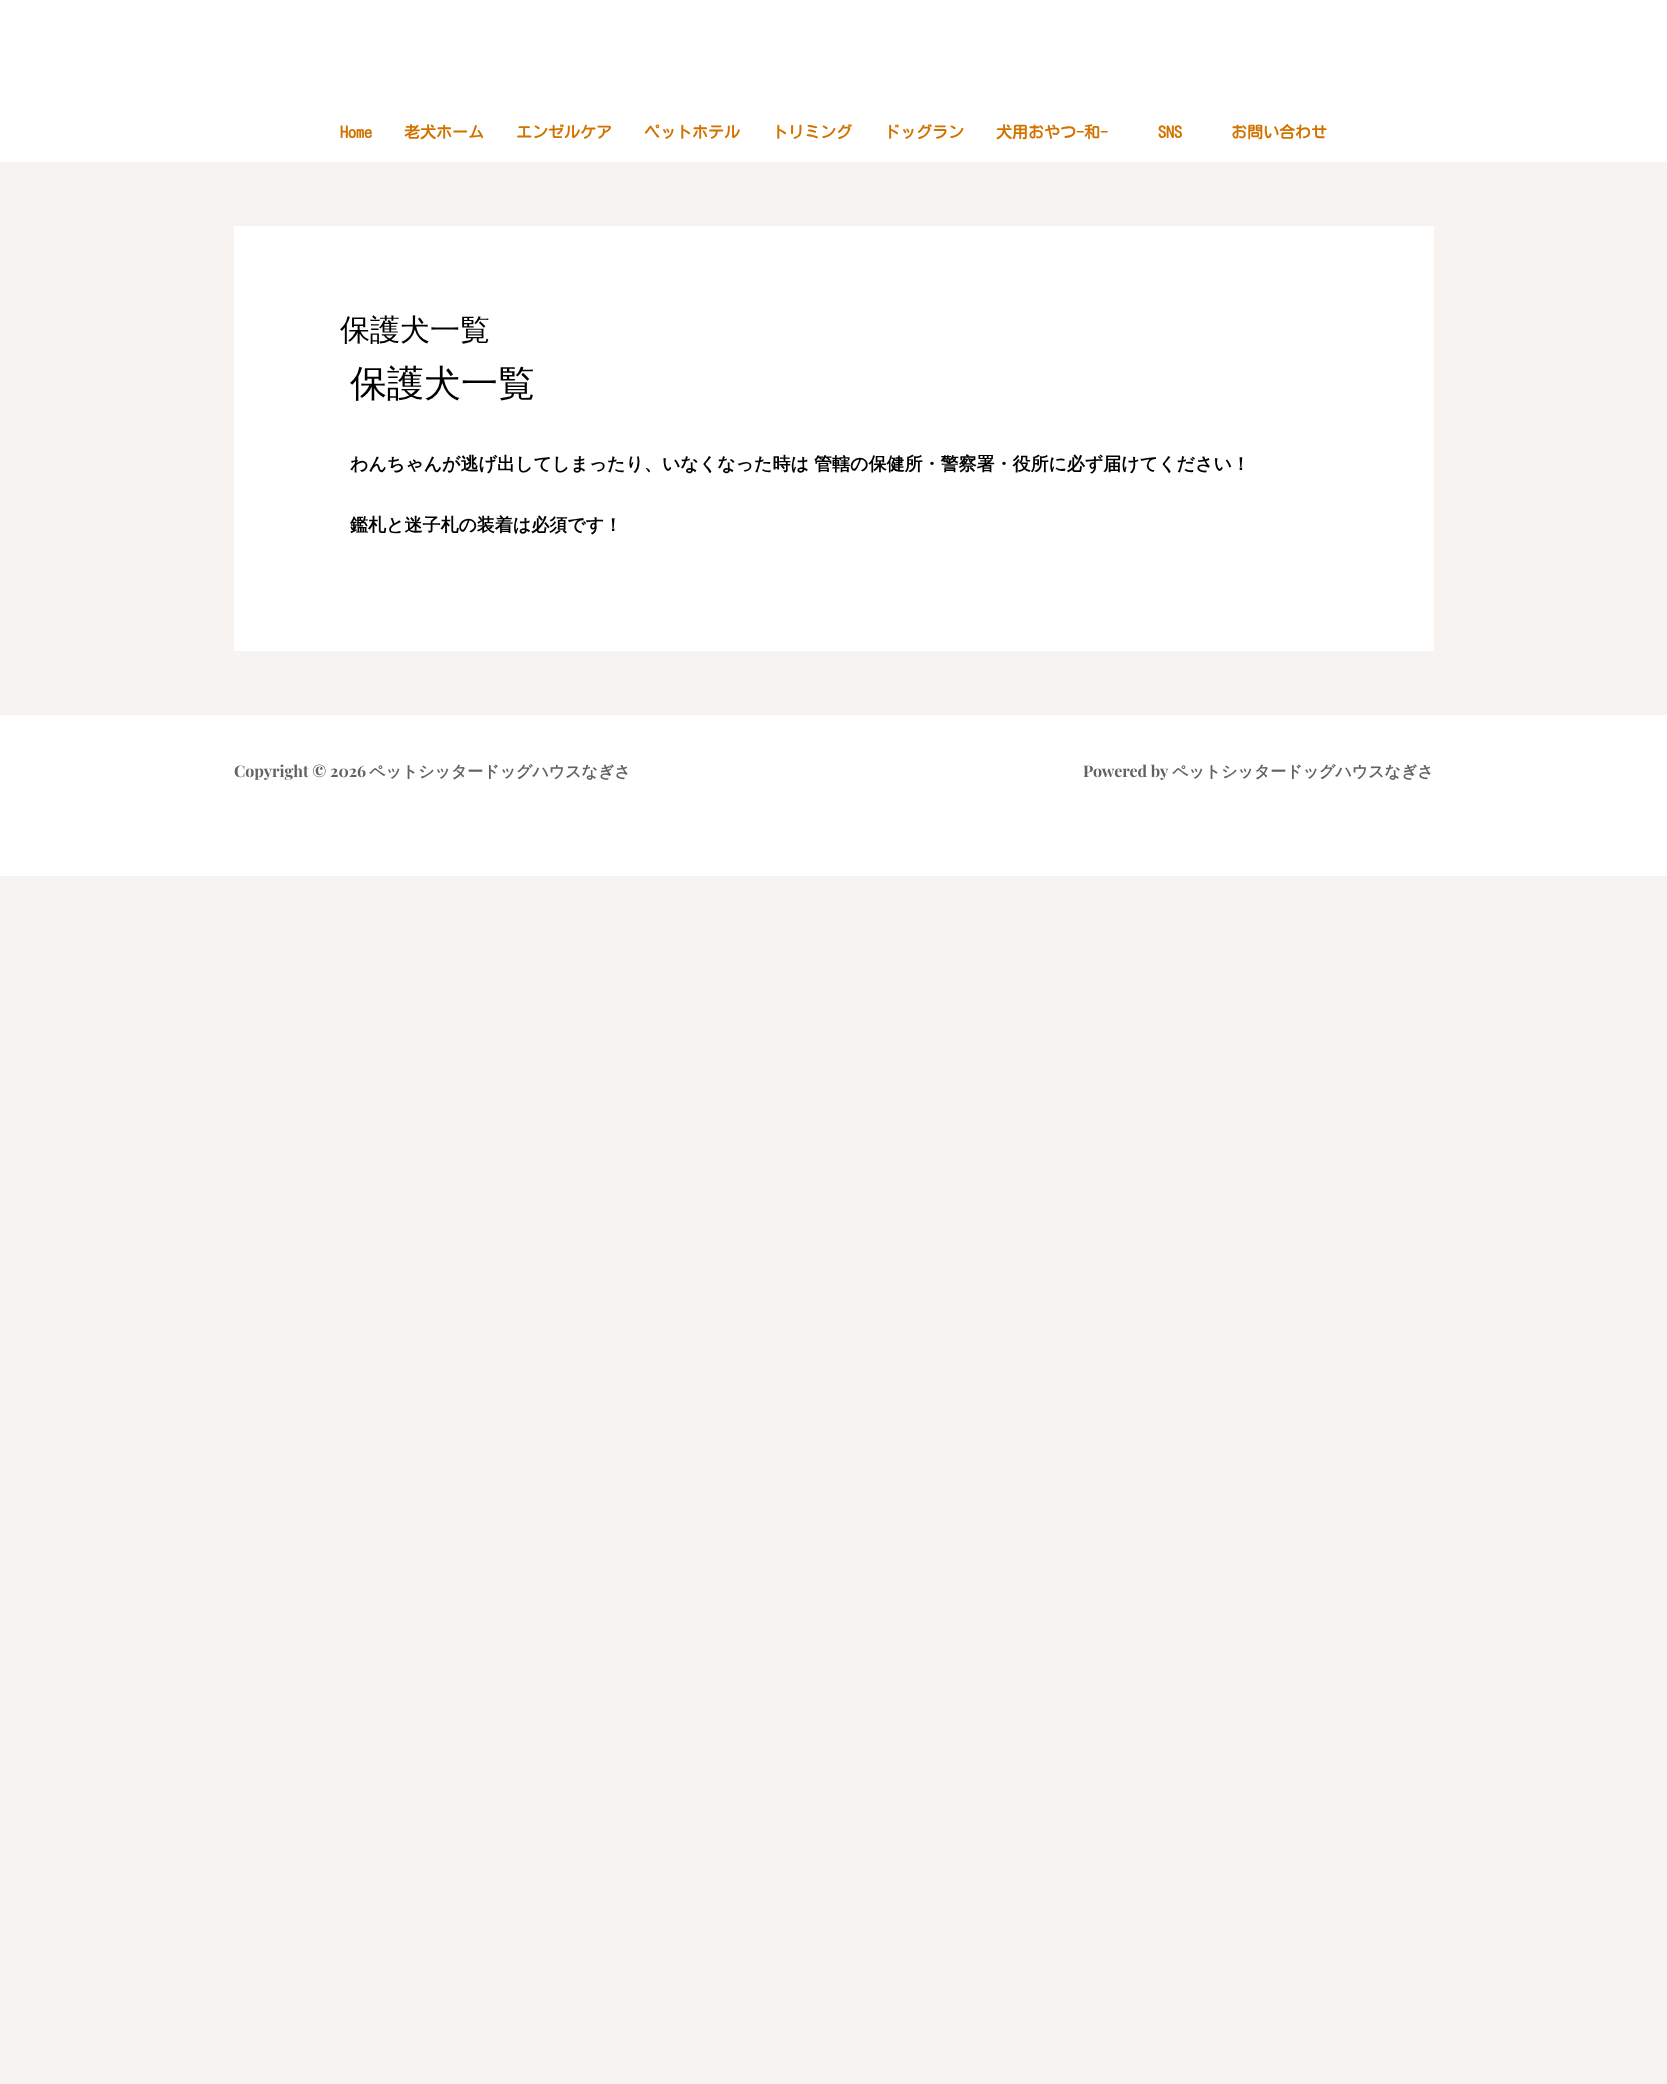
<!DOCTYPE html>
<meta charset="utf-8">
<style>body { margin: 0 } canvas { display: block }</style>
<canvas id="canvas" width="1667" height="2084"></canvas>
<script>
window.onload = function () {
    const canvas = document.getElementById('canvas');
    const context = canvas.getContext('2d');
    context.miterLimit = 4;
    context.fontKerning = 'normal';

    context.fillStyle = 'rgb(246, 243, 241)';
    context.fillRect(0, 0, 1667, 2084);
    context.fillStyle = 'rgb(255, 255, 255)';
    context.fillRect(0, 0, 1667, 162);
    context.fillRect(234, 226, 1200, 425);
    context.fillRect(0, 715, 1667, 161);
    context.font = 'bold 16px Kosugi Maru';
    context.fillStyle = 'rgb(210, 115, 0)';
    context.fillText('Home', 340, 138);
    context.fillText('老犬ホーム', 404, 138);
    context.fillText('エンゼルケア', 516, 138);
    context.fillText('ペットホテル', 644, 138);
    context.fillText('トリミング', 772, 138);
    context.fillText('ドッグラン', 884, 138);
    context.fillText('犬用おやつ-和-', 996, 138);
    context.fillText('SNS', 1158, 138);
    context.fillText('お問い合わせ', 1231, 138);
    context.font = '500 30px WenQuanYi Zen Hei';
    context.fillStyle = 'rgb(0, 0, 0)';
    context.fillText('保護犬一覧', 340, 340);
    context.font = '500 37px WenQuanYi Zen Hei';
    context.fillText('保護犬一覧', 350, 396);
    context.font = 'bold 18px WenQuanYi Zen Hei';
    context.fillText('わんちゃんが逃げ出してしまったり、いなくなった時は', 350, 470);
    context.fillText('管轄の保健所・警察署・役所に必ず届けてください！', 814, 470);
    context.fillText('鑑札と迷子札の装着は必須です！', 350, 531);
    context.font = 'bold 16px Playfair Display';
    context.fillStyle = 'rgb(99, 97, 97)';
    context.fillText('Copyright © 2026', 234, 777);
    context.font = 'bold 16px WenQuanYi Zen Hei';
    context.fillText('ペットシッタードッグハウスなぎさ', 369, 777);
    context.font = 'bold 16px Playfair Display';
    context.fillText('Powered by', 1083, 777);
    context.font = 'bold 16px WenQuanYi Zen Hei';
    context.fillText('ペットシッタードッグハウスなぎさ', 1172, 777);
};
</script>
